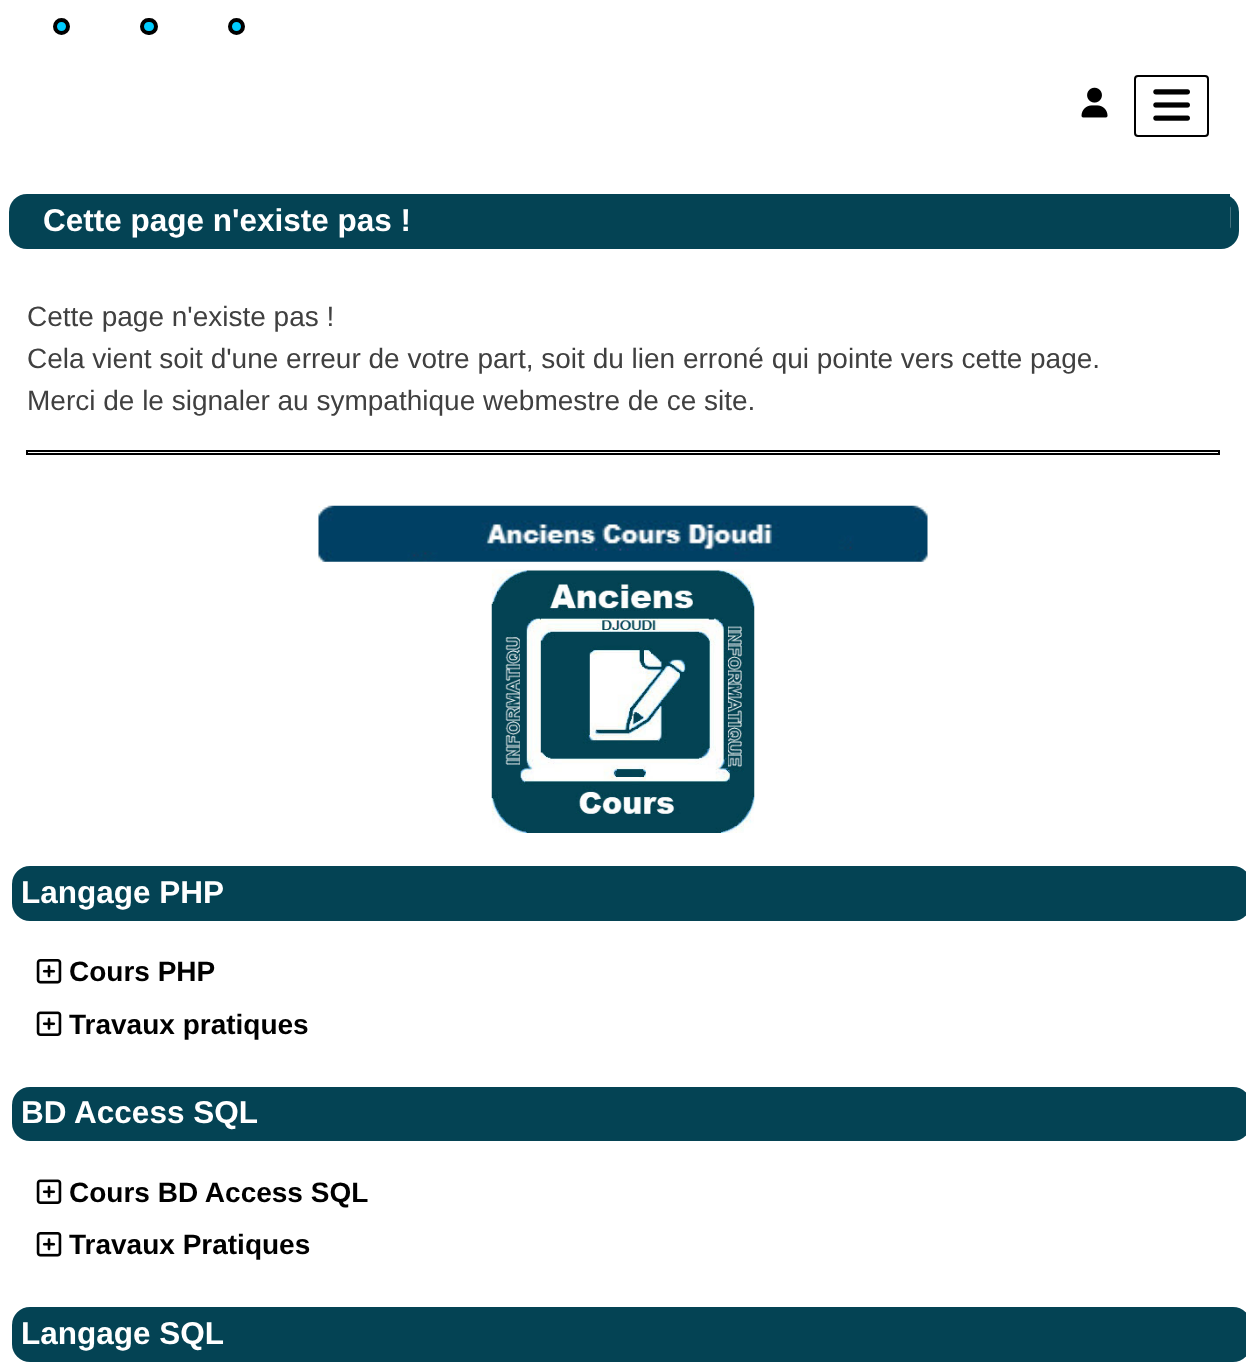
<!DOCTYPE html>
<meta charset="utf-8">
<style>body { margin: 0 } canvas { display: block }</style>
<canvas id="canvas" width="1246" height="1362"></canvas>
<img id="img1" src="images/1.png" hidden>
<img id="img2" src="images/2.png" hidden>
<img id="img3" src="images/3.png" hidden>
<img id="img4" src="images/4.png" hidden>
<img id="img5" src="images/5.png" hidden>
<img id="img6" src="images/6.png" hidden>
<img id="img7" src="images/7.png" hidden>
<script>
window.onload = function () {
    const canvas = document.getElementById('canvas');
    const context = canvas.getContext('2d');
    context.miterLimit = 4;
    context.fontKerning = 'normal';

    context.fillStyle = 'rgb(255, 255, 255)';
    context.fillRect(0, 0, 1246, 1362);
    context.fillStyle = 'rgb(0, 204, 255)';
    context.beginPath();
    context.arc(61.5, 26.5, 6.5, 0, 2 * Math.PI);
    context.fill();
    context.strokeStyle = 'rgb(0, 0, 0)';
    context.lineWidth = 4;
    context.stroke();
    context.beginPath();
    context.roundRect(142, 20, 14, 13, 6.5);
    context.fill();
    context.stroke();
    context.beginPath();
    context.arc(236.5, 26.5, 6.5, 0, 2 * Math.PI);
    context.fill();
    context.stroke();
    context.drawImage(document.getElementById('img1'), 1081, 87, 27, 31);
    context.beginPath();
    context.roundRect(1135, 76, 73, 60, 3);
    context.lineWidth = 2;
    context.stroke();
    context.drawImage(document.getElementById('img2'), 1153, 89, 37, 32);
    context.fillStyle = 'rgb(4, 67, 84)';
    context.beginPath();
    context.roundRect(9, 194, 1230, 55, 18);
    context.fill();
    context.fillRect(1221, 194, 9, 3);
    context.drawImage(document.getElementById('img3'), 1230, 206, 1, 23);
    context.strokeRect(27, 451, 1192, 3);
    context.drawImage(document.getElementById('img4'), 318, 505, 610, 57);
    context.drawImage(document.getElementById('img5'), 491, 569, 264, 264);
    context.beginPath();
    context.roundRect(12, 866, 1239, 55, 18);
    context.fill();
    context.drawImage(document.getElementById('img6'), 36, 959, 26, 25);
    context.drawImage(document.getElementById('img7'), 36, 1011, 26, 25);
    context.beginPath();
    context.roundRect(12, 1087, 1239, 54, 18);
    context.fill();
    context.drawImage(document.getElementById('img7'), 36, 1179, 26, 25);
    context.drawImage(document.getElementById('img6'), 36, 1232, 26, 25);
    context.beginPath();
    context.roundRect(12, 1307, 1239, 55, 18);
    context.fill();
    context.font = 'bold 31.5px Liberation Sans';
    context.fillStyle = 'rgb(255, 255, 255)';
    context.fillText('Cette page n\'existe pas !', 43, 231);
    context.font = '28px Liberation Sans';
    context.fillStyle = 'rgb(64, 64, 64)';
    context.fillText('Cette page n\'existe pas !', 27, 326);
    context.fillText('Cela vient soit d\'une erreur de votre part, soit du lien erroné qui pointe vers cette page.', 27, 368);
    context.fillText('Merci de le signaler au sympathique webmestre de ce site.', 27, 410);
    context.font = 'bold 31.5px Liberation Sans';
    context.fillStyle = 'rgb(255, 255, 255)';
    context.fillText('Langage PHP', 21, 903);
    context.font = 'bold 28px Liberation Sans';
    context.fillStyle = 'rgb(0, 0, 0)';
    context.fillText('Cours PHP', 69, 981);
    context.fillText('Travaux pratiques', 69, 1034);
    context.font = 'bold 31.5px Liberation Sans';
    context.fillStyle = 'rgb(255, 255, 255)';
    context.fillText('BD Access SQL', 21, 1123);
    context.font = 'bold 28px Liberation Sans';
    context.fillStyle = 'rgb(0, 0, 0)';
    context.fillText('Cours BD Access SQL', 69, 1202);
    context.fillText('Travaux Pratiques', 69, 1254);
    context.font = 'bold 31.5px Liberation Sans';
    context.fillStyle = 'rgb(255, 255, 255)';
    context.fillText('Langage SQL', 21, 1344);
};
</script>
